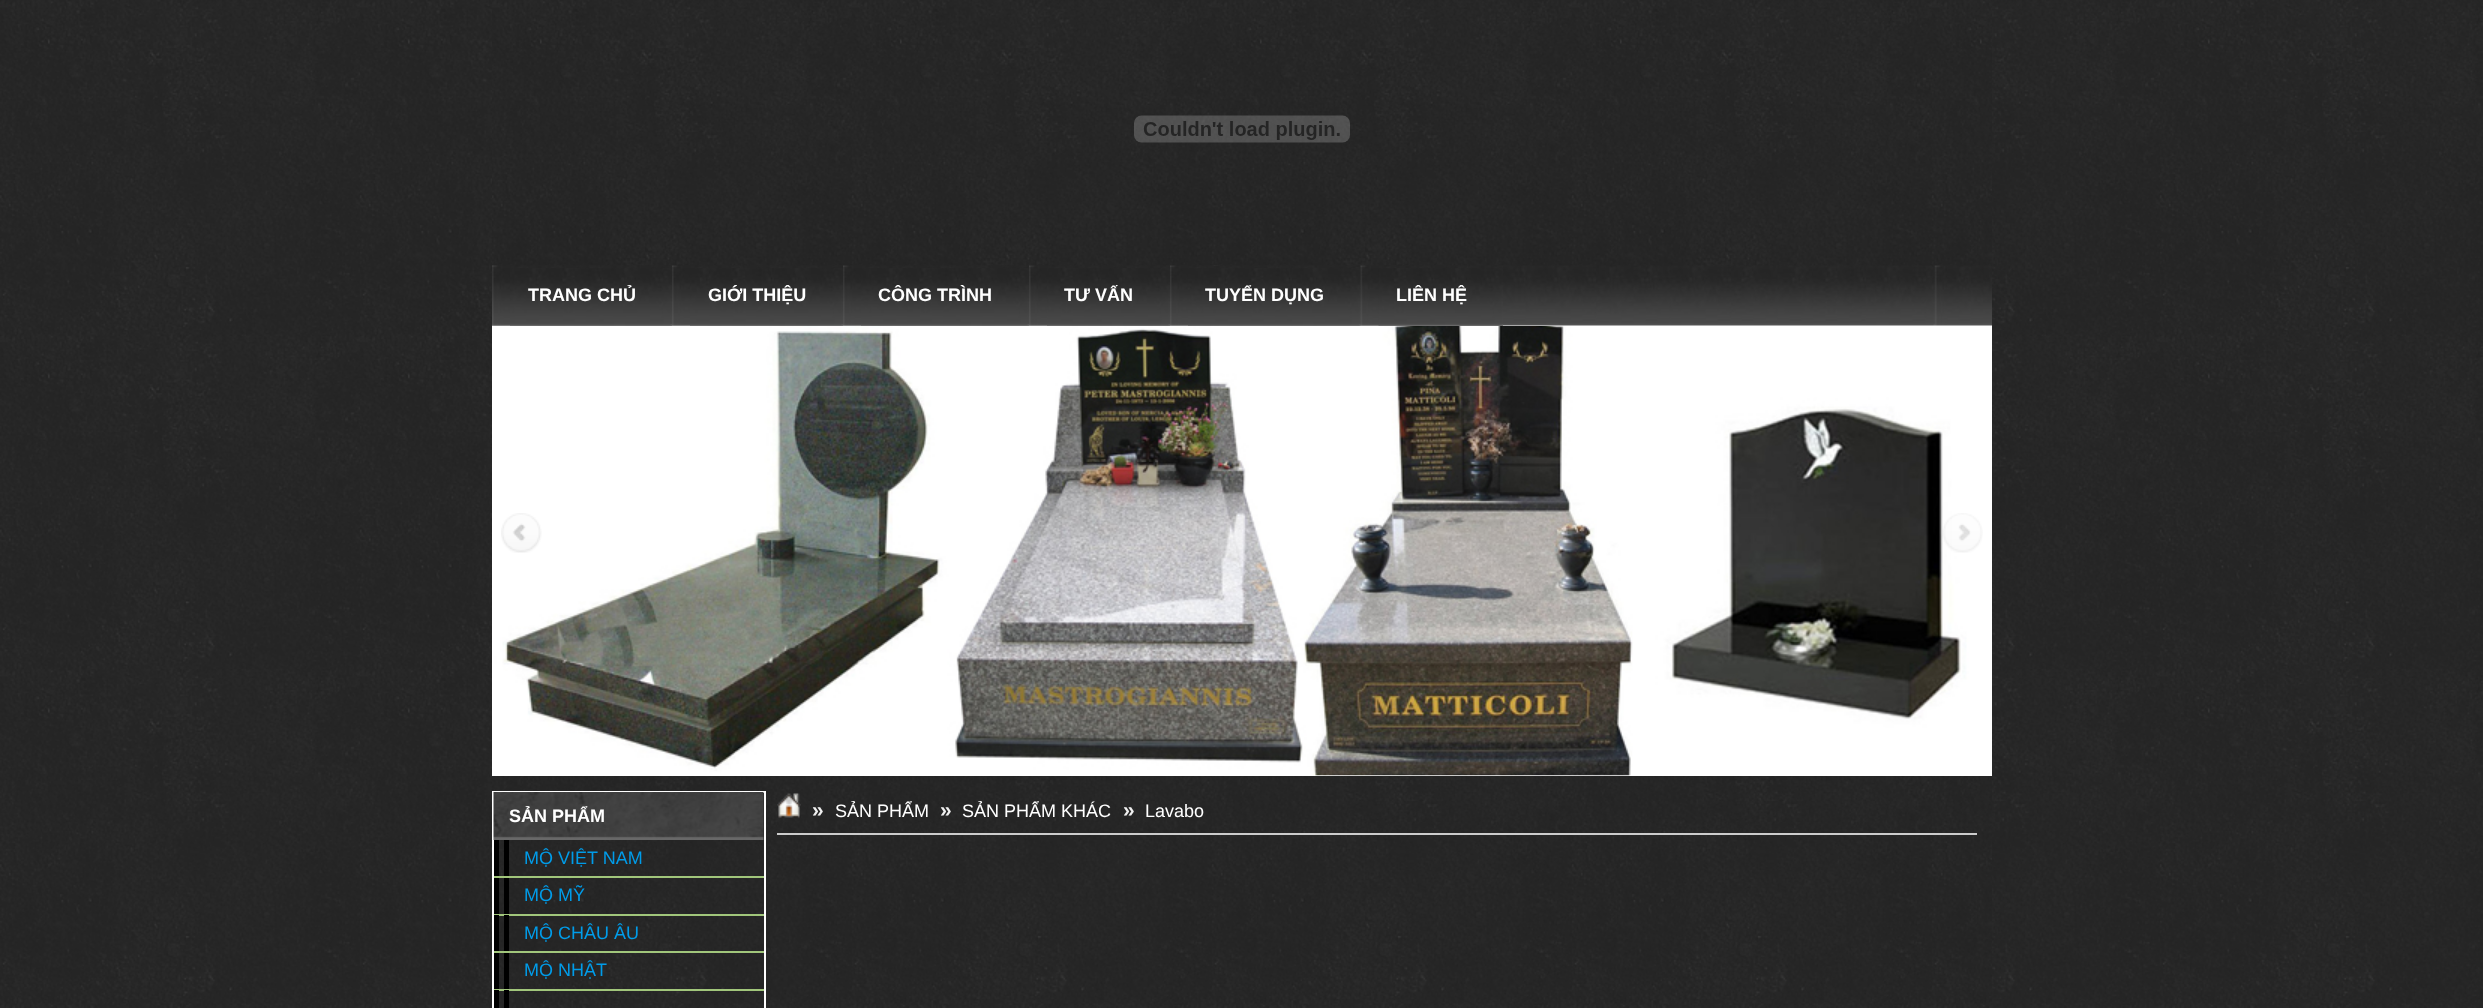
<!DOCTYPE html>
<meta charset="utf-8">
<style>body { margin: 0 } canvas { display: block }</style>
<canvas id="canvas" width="2483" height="1008"></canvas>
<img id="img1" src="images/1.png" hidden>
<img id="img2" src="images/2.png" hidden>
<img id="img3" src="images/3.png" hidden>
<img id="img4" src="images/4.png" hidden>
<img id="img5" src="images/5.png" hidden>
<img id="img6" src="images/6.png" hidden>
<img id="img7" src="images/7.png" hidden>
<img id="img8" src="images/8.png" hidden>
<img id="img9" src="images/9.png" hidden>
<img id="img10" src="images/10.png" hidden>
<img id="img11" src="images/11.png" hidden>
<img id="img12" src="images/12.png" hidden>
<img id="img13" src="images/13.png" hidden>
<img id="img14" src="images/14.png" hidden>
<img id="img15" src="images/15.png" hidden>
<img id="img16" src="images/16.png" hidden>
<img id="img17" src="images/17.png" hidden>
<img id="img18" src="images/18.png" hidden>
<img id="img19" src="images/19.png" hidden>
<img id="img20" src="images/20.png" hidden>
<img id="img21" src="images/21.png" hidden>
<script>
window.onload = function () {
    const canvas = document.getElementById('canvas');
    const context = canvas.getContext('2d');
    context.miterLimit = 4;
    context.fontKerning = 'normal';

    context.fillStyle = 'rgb(255, 255, 255)';
    context.fillRect(0, 0, 2483, 1008);
    context.drawImage(document.getElementById('img1'), 0, 0, 2483, 1008);
    context.drawImage(document.getElementById('img2'), 492, 0, 1500, 1008);
    context.drawImage(document.getElementById('img3'), 1134, 115, 216, 28);
    context.fillRect(492, 325, 1500, 1);
    context.drawImage(document.getElementById('img4'), 492, 265, 1500, 61);
    context.drawImage(document.getElementById('img5'), 492, 265, 180, 61);
    context.drawImage(document.getElementById('img6'), 510, 268, 162, 58);
    context.drawImage(document.getElementById('img7'), 672, 265, 171, 61);
    context.drawImage(document.getElementById('img8'), 690, 268, 153, 58);
    context.drawImage(document.getElementById('img9'), 843, 265, 186, 61);
    context.drawImage(document.getElementById('img10'), 861, 268, 168, 58);
    context.drawImage(document.getElementById('img11'), 1029, 265, 141, 61);
    context.drawImage(document.getElementById('img12'), 1047, 268, 123, 58);
    context.drawImage(document.getElementById('img13'), 1170, 265, 191, 61);
    context.drawImage(document.getElementById('img14'), 1188, 268, 173, 58);
    context.drawImage(document.getElementById('img15'), 1360, 265, 143, 61);
    context.drawImage(document.getElementById('img16'), 1378, 268, 125, 58);
    context.fillRect(492, 775, 1500, 1);
    context.drawImage(document.getElementById('img17'), 492, 326, 1500, 450);
    context.drawImage(document.getElementById('img18'), 501, 513, 41, 40);
    context.drawImage(document.getElementById('img19'), 1942, 513, 41, 40);
    context.fillRect(492, 791, 273, 2);
    context.fillRect(764, 791, 2, 217);
    context.fillRect(492, 791, 2, 217);
    context.drawImage(document.getElementById('img20'), 493, 792, 271, 48);
    context.fillStyle = 'rgb(161, 198, 123)';
    context.fillRect(494, 876, 270, 2);
    context.fillStyle = 'rgb(0, 0, 0)';
    context.fillRect(494, 840, 5, 36);
    context.fillRect(504, 840, 5, 36);
    context.fillStyle = 'rgb(161, 198, 123)';
    context.fillRect(494, 914, 270, 2);
    context.fillStyle = 'rgb(0, 0, 0)';
    context.fillRect(494, 878, 5, 36);
    context.fillRect(504, 878, 5, 36);
    context.fillStyle = 'rgb(161, 198, 123)';
    context.fillRect(494, 951, 270, 2);
    context.fillStyle = 'rgb(0, 0, 0)';
    context.fillRect(494, 915, 5, 36);
    context.fillRect(504, 915, 5, 36);
    context.fillStyle = 'rgb(161, 198, 123)';
    context.fillRect(494, 989, 270, 2);
    context.fillStyle = 'rgb(0, 0, 0)';
    context.fillRect(494, 953, 5, 36);
    context.fillRect(504, 953, 5, 36);
    context.fillRect(494, 990, 5, 18);
    context.fillRect(504, 990, 5, 18);
    context.fillStyle = 'rgb(204, 204, 204)';
    context.fillRect(777, 833, 1200, 2);
    context.drawImage(document.getElementById('img21'), 777, 793, 24, 25);
    context.font = 'bold 18px Liberation Sans';
    context.fillStyle = 'rgb(255, 255, 255)';
    context.fillText('TRANG CHỦ', 528, 301);
    context.fillText('GIỚI THIỆU', 708, 301);
    context.fillText('CÔNG TRÌNH', 878, 301);
    context.fillText('TƯ VẤN', 1064, 301);
    context.fillText('TUYỂN DỤNG', 1205, 301);
    context.fillText('LIÊN HỆ', 1396, 301);
    context.fillText('SẢN PHẨM', 509, 822);
    context.font = '18px Liberation Sans';
    context.fillStyle = 'rgb(0, 156, 233)';
    context.fillText('MỘ VIỆT NAM', 524, 864);
    context.fillText('MỘ MỸ', 524, 901);
    context.fillText('MỘ CHÂU ÂU', 524, 939);
    context.fillText('MỘ NHẬT', 524, 976);
    context.font = 'bold 21px Liberation Sans';
    context.fillStyle = 'rgb(240, 240, 240)';
    context.fillText('»', 812, 817);
    context.font = '18px Liberation Sans';
    context.fillStyle = 'rgb(255, 255, 255)';
    context.fillText('SẢN PHẨM', 835, 817);
    context.font = 'bold 21px Liberation Sans';
    context.fillStyle = 'rgb(240, 240, 240)';
    context.fillText('»', 940, 817);
    context.font = '18px Liberation Sans';
    context.fillStyle = 'rgb(255, 255, 255)';
    context.fillText('SẢN PHẨM KHÁC', 962, 817);
    context.font = 'bold 21px Liberation Sans';
    context.fillStyle = 'rgb(240, 240, 240)';
    context.fillText('»', 1123, 817);
    context.font = '18px Liberation Sans';
    context.fillStyle = 'rgb(255, 255, 255)';
    context.fillText('Lavabo', 1145, 817);
};
</script>
